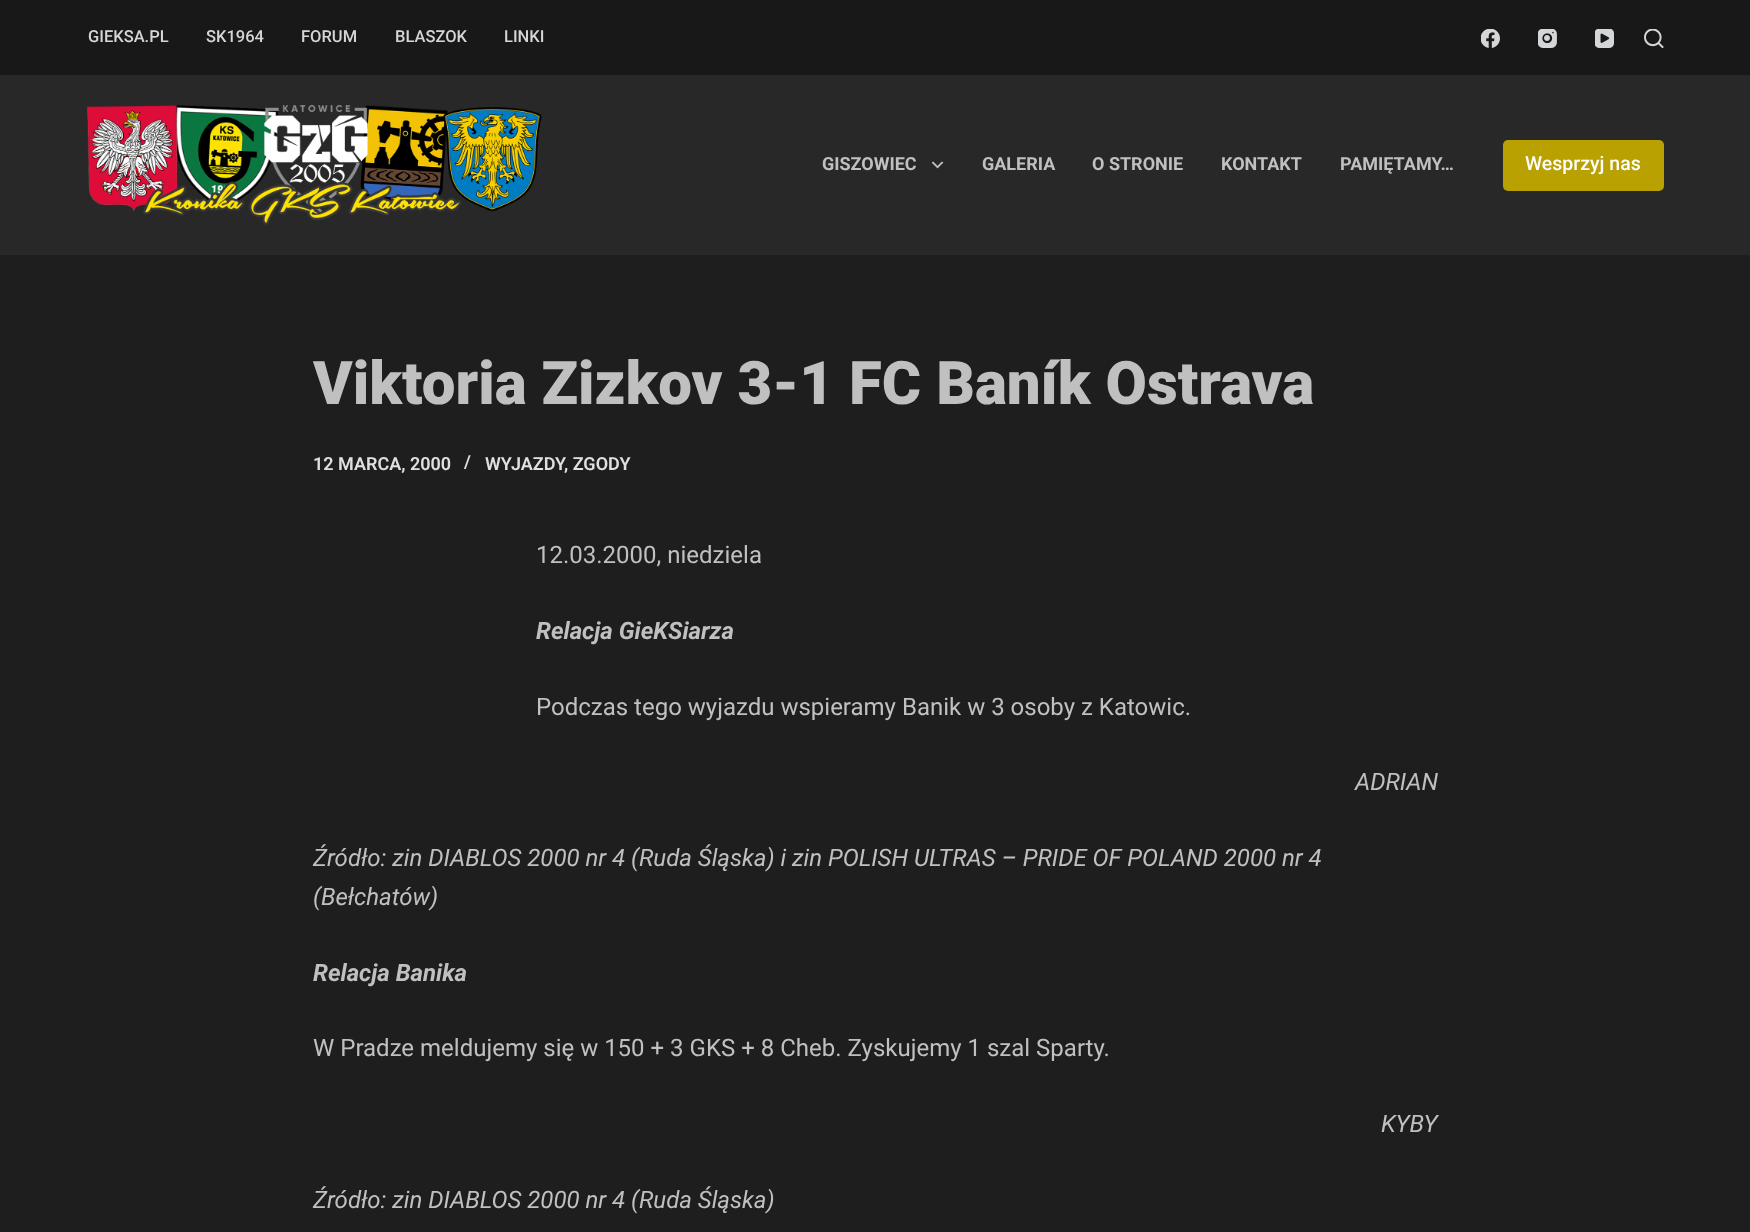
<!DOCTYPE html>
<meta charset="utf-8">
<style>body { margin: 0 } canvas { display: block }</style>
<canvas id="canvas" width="1750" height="1232"></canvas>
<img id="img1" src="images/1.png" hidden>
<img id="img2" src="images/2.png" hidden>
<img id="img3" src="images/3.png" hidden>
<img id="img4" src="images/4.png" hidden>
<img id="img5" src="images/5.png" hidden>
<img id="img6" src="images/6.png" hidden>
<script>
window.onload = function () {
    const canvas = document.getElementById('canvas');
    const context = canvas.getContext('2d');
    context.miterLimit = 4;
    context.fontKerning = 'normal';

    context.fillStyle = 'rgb(30, 30, 30)';
    context.fillRect(0, 0, 1750, 1232);
    context.fillStyle = 'rgb(24, 24, 24)';
    context.fillRect(0, 0, 1750, 75);
    context.drawImage(document.getElementById('img1'), 1481, 29, 19, 19);
    context.drawImage(document.getElementById('img2'), 1538, 29, 19, 19);
    context.drawImage(document.getElementById('img3'), 1595, 29, 19, 19);
    context.drawImage(document.getElementById('img4'), 1644, 29, 20, 19);
    context.fillStyle = 'rgb(40, 40, 40)';
    context.fillRect(0, 75, 1750, 180);
    context.drawImage(document.getElementById('img5'), 87, 105, 455, 120);
    context.drawImage(document.getElementById('img6'), 932, 161, 12, 8);
    context.fillStyle = 'rgb(184, 161, 0)';
    context.beginPath();
    context.roundRect(1503, 140, 161, 51, 5);
    context.fill();
    context.font = '500 16.5px Roboto';
    context.fillStyle = 'rgb(212, 214, 216)';
    context.fillText('GIEKSA.PL', 88, 42);
    context.fillText('SK1964', 206, 42);
    context.fillText('FORUM', 301, 42);
    context.fillText('BLASZOK', 395, 42);
    context.fillText('LINKI', 504, 42);
    context.font = 'bold 18px Roboto';
    context.fillStyle = 'rgb(192, 192, 192)';
    context.fillText('GISZOWIEC', 822, 170);
    context.fillText('GALERIA', 982, 170);
    context.fillText('O STRONIE', 1092, 170);
    context.fillText('KONTAKT', 1221, 170);
    context.fillText('PAMIĘTAMY…', 1340, 170);
    context.font = '500 19.5px Roboto';
    context.fillStyle = 'rgb(255, 255, 255)';
    context.fillText('Wesprzyj nas', 1525, 170);
    context.font = '900 60px Roboto';
    context.fillStyle = 'rgb(192, 192, 192)';
    context.fillText('Viktoria Zizkov 3-1 FC Baník Ostrava', 313, 404);
    context.font = '600 18px Roboto';
    context.fillStyle = 'rgb(224, 224, 224)';
    context.fillText('12 MARCA, 2000', 313, 470);
    context.fillText('/', 464, 468);
    context.fillText('WYJAZDY', 485, 470);
    context.fillText(', ZGODY', 564, 470);
    context.font = '24px Roboto';
    context.fillStyle = 'rgb(192, 192, 192)';
    context.fillText('12.03.2000, niedziela', 536, 563);
    context.font = 'italic bold 24px Roboto';
    context.fillText('Relacja GieKSiarza', 536, 639);
    context.font = '24px Roboto';
    context.fillText('Podczas tego wyjazdu wspieramy Banik w 3 osoby z Katowic.', 536, 715);
    context.font = 'italic 24px Roboto';
    context.fillText('ADRIAN', 1355, 790);
    context.fillText('Źródło: zin DIABLOS 2000 nr 4 (Ruda Śląska) i zin POLISH ULTRAS – PRIDE OF POLAND 2000 nr 4', 313, 866);
    context.fillText('(Bełchatów)', 313, 905);
    context.font = 'italic bold 24px Roboto';
    context.fillText('Relacja Banika', 313, 981);
    context.font = '24px Roboto';
    context.fillText('W Pradze meldujemy się w 150 + 3 GKS + 8 Cheb. Zyskujemy 1 szal Sparty.', 313, 1056);
    context.font = 'italic 24px Roboto';
    context.fillText('KYBY', 1381, 1132);
    context.fillText('Źródło: zin DIABLOS 2000 nr 4 (Ruda Śląska)', 313, 1208);
};
</script>
